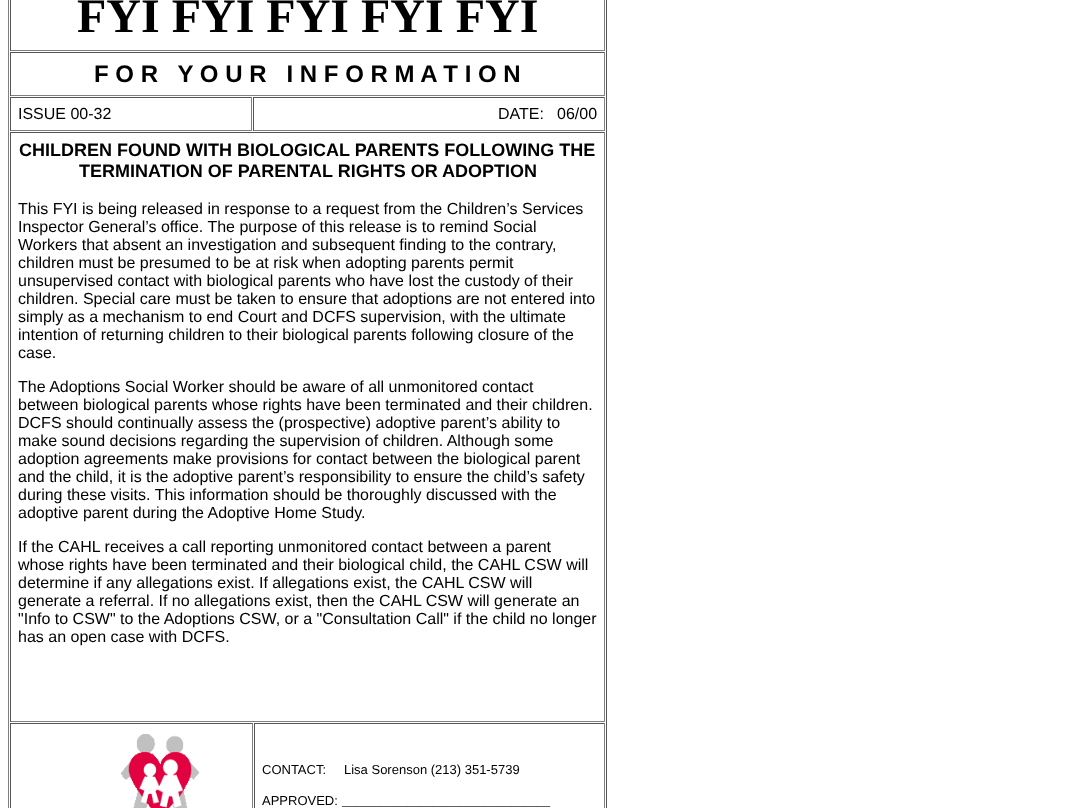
<!DOCTYPE html>
<meta charset="utf-8">
<style>body { margin: 0 } canvas { display: block }</style>
<canvas id="canvas" width="1070" height="808"></canvas>
<img id="img1" src="images/1.png" hidden>
<script>
window.onload = function () {
    const canvas = document.getElementById('canvas');
    const context = canvas.getContext('2d');
    context.miterLimit = 4;
    context.fontKerning = 'normal';

    context.fillStyle = 'rgb(255, 255, 255)';
    context.fillRect(0, 0, 1070, 808);
    context.fillStyle = 'rgb(85, 85, 85)';
    context.fillRect(606, 0, 1, 808);
    context.fillStyle = 'rgb(128, 128, 128)';
    context.fillRect(8, 0, 1, 808);
    context.fillRect(604, 0, 1, 51);
    context.fillRect(10, 50, 595, 1);
    context.fillStyle = 'rgb(85, 85, 85)';
    context.fillRect(10, 0, 1, 51);
    context.fillRect(10, 52, 595, 1);
    context.fillStyle = 'rgb(128, 128, 128)';
    context.fillRect(604, 52, 1, 44);
    context.fillRect(10, 95, 595, 1);
    context.fillStyle = 'rgb(85, 85, 85)';
    context.fillRect(10, 52, 1, 44);
    context.fillRect(10, 97, 242, 1);
    context.fillStyle = 'rgb(128, 128, 128)';
    context.fillRect(251, 97, 1, 34);
    context.fillRect(10, 130, 242, 1);
    context.fillStyle = 'rgb(85, 85, 85)';
    context.fillRect(10, 97, 1, 34);
    context.fillRect(253, 97, 352, 1);
    context.fillStyle = 'rgb(128, 128, 128)';
    context.fillRect(604, 97, 1, 34);
    context.fillRect(253, 130, 352, 1);
    context.fillStyle = 'rgb(85, 85, 85)';
    context.fillRect(253, 97, 1, 34);
    context.fillRect(10, 132, 595, 1);
    context.fillStyle = 'rgb(128, 128, 128)';
    context.fillRect(604, 132, 1, 590);
    context.fillRect(10, 721, 595, 1);
    context.fillStyle = 'rgb(85, 85, 85)';
    context.fillRect(10, 132, 1, 590);
    context.fillRect(10, 723, 243, 1);
    context.fillStyle = 'rgb(128, 128, 128)';
    context.fillRect(252, 723, 1, 85);
    context.fillStyle = 'rgb(85, 85, 85)';
    context.fillRect(10, 723, 1, 85);
    context.drawImage(document.getElementById('img1'), 120, 734, 80, 74);
    context.fillRect(254, 723, 351, 1);
    context.fillStyle = 'rgb(128, 128, 128)';
    context.fillRect(604, 723, 1, 85);
    context.fillStyle = 'rgb(85, 85, 85)';
    context.fillRect(254, 723, 1, 85);
    context.font = 'bold 48px Liberation Serif';
    context.fillStyle = 'rgb(0, 0, 0)';
    context.fillText('FYI FYI FYI FYI FYI', 77, 32);
    context.font = 'bold 24px Liberation Sans';
    context.fillText('F O R   Y O U R   I N F O R M A T I O N', 94, 82);
    context.font = '16px Liberation Sans';
    context.fillText('ISSUE 00-32', 18, 119);
    context.fillText('DATE:', 498, 119);
    context.fillText('06/00', 557, 119);
    context.font = 'bold 18px Liberation Sans';
    context.fillText('CHILDREN FOUND WITH BIOLOGICAL PARENTS FOLLOWING THE', 19, 156);
    context.fillText('TERMINATION OF PARENTAL RIGHTS OR ADOPTION', 79, 177);
    context.font = '16px Liberation Sans';
    context.fillText('This FYI is being released in response to a request from the Children’s Services', 18, 214);
    context.fillText('Inspector General’s office. The purpose of this release is to remind Social', 18, 232);
    context.fillText('Workers that absent an investigation and subsequent finding to the contrary,', 18, 250);
    context.fillText('children must be presumed to be at risk when adopting parents permit', 18, 268);
    context.fillText('unsupervised contact with biological parents who have lost the custody of their', 18, 286);
    context.fillText('children. Special care must be taken to ensure that adoptions are not entered into', 18, 304);
    context.fillText('simply as a mechanism to end Court and DCFS supervision, with the ultimate', 18, 322);
    context.fillText('intention of returning children to their biological parents following closure of the', 18, 340);
    context.fillText('case.', 18, 358);
    context.fillText('The Adoptions Social Worker should be aware of all unmonitored contact', 18, 392);
    context.fillText('between biological parents whose rights have been terminated and their children.', 18, 410);
    context.fillText('DCFS should continually assess the (prospective) adoptive parent’s ability to', 18, 428);
    context.fillText('make sound decisions regarding the supervision of children. Although some', 18, 446);
    context.fillText('adoption agreements make provisions for contact between the biological parent', 18, 464);
    context.fillText('and the child, it is the adoptive parent’s responsibility to ensure the child’s safety', 18, 482);
    context.fillText('during these visits. This information should be thoroughly discussed with the', 18, 500);
    context.fillText('adoptive parent during the Adoptive Home Study.', 18, 518);
    context.fillText('If the CAHL receives a call reporting unmonitored contact between a parent', 18, 552);
    context.fillText('whose rights have been terminated and their biological child, the CAHL CSW will', 18, 570);
    context.fillText('determine if any allegations exist. If allegations exist, the CAHL CSW will', 18, 588);
    context.fillText('generate a referral. If no allegations exist, then the CAHL CSW will generate an', 18, 606);
    context.fillText('"Info to CSW" to the Adoptions CSW, or a "Consultation Call" if the child no longer', 18, 624);
    context.fillText('has an open case with DCFS.', 18, 642);
    context.font = '13px Liberation Sans';
    context.fillText('CONTACT:', 262, 774);
    context.fillText('Lisa Sorenson (213) 351-5739', 344, 774);
    context.fillText('APPROVED:', 262, 805);
    context.font = '13px Liberation Serif';
    context.fillText('________________________________', 342, 805);
};
</script>
